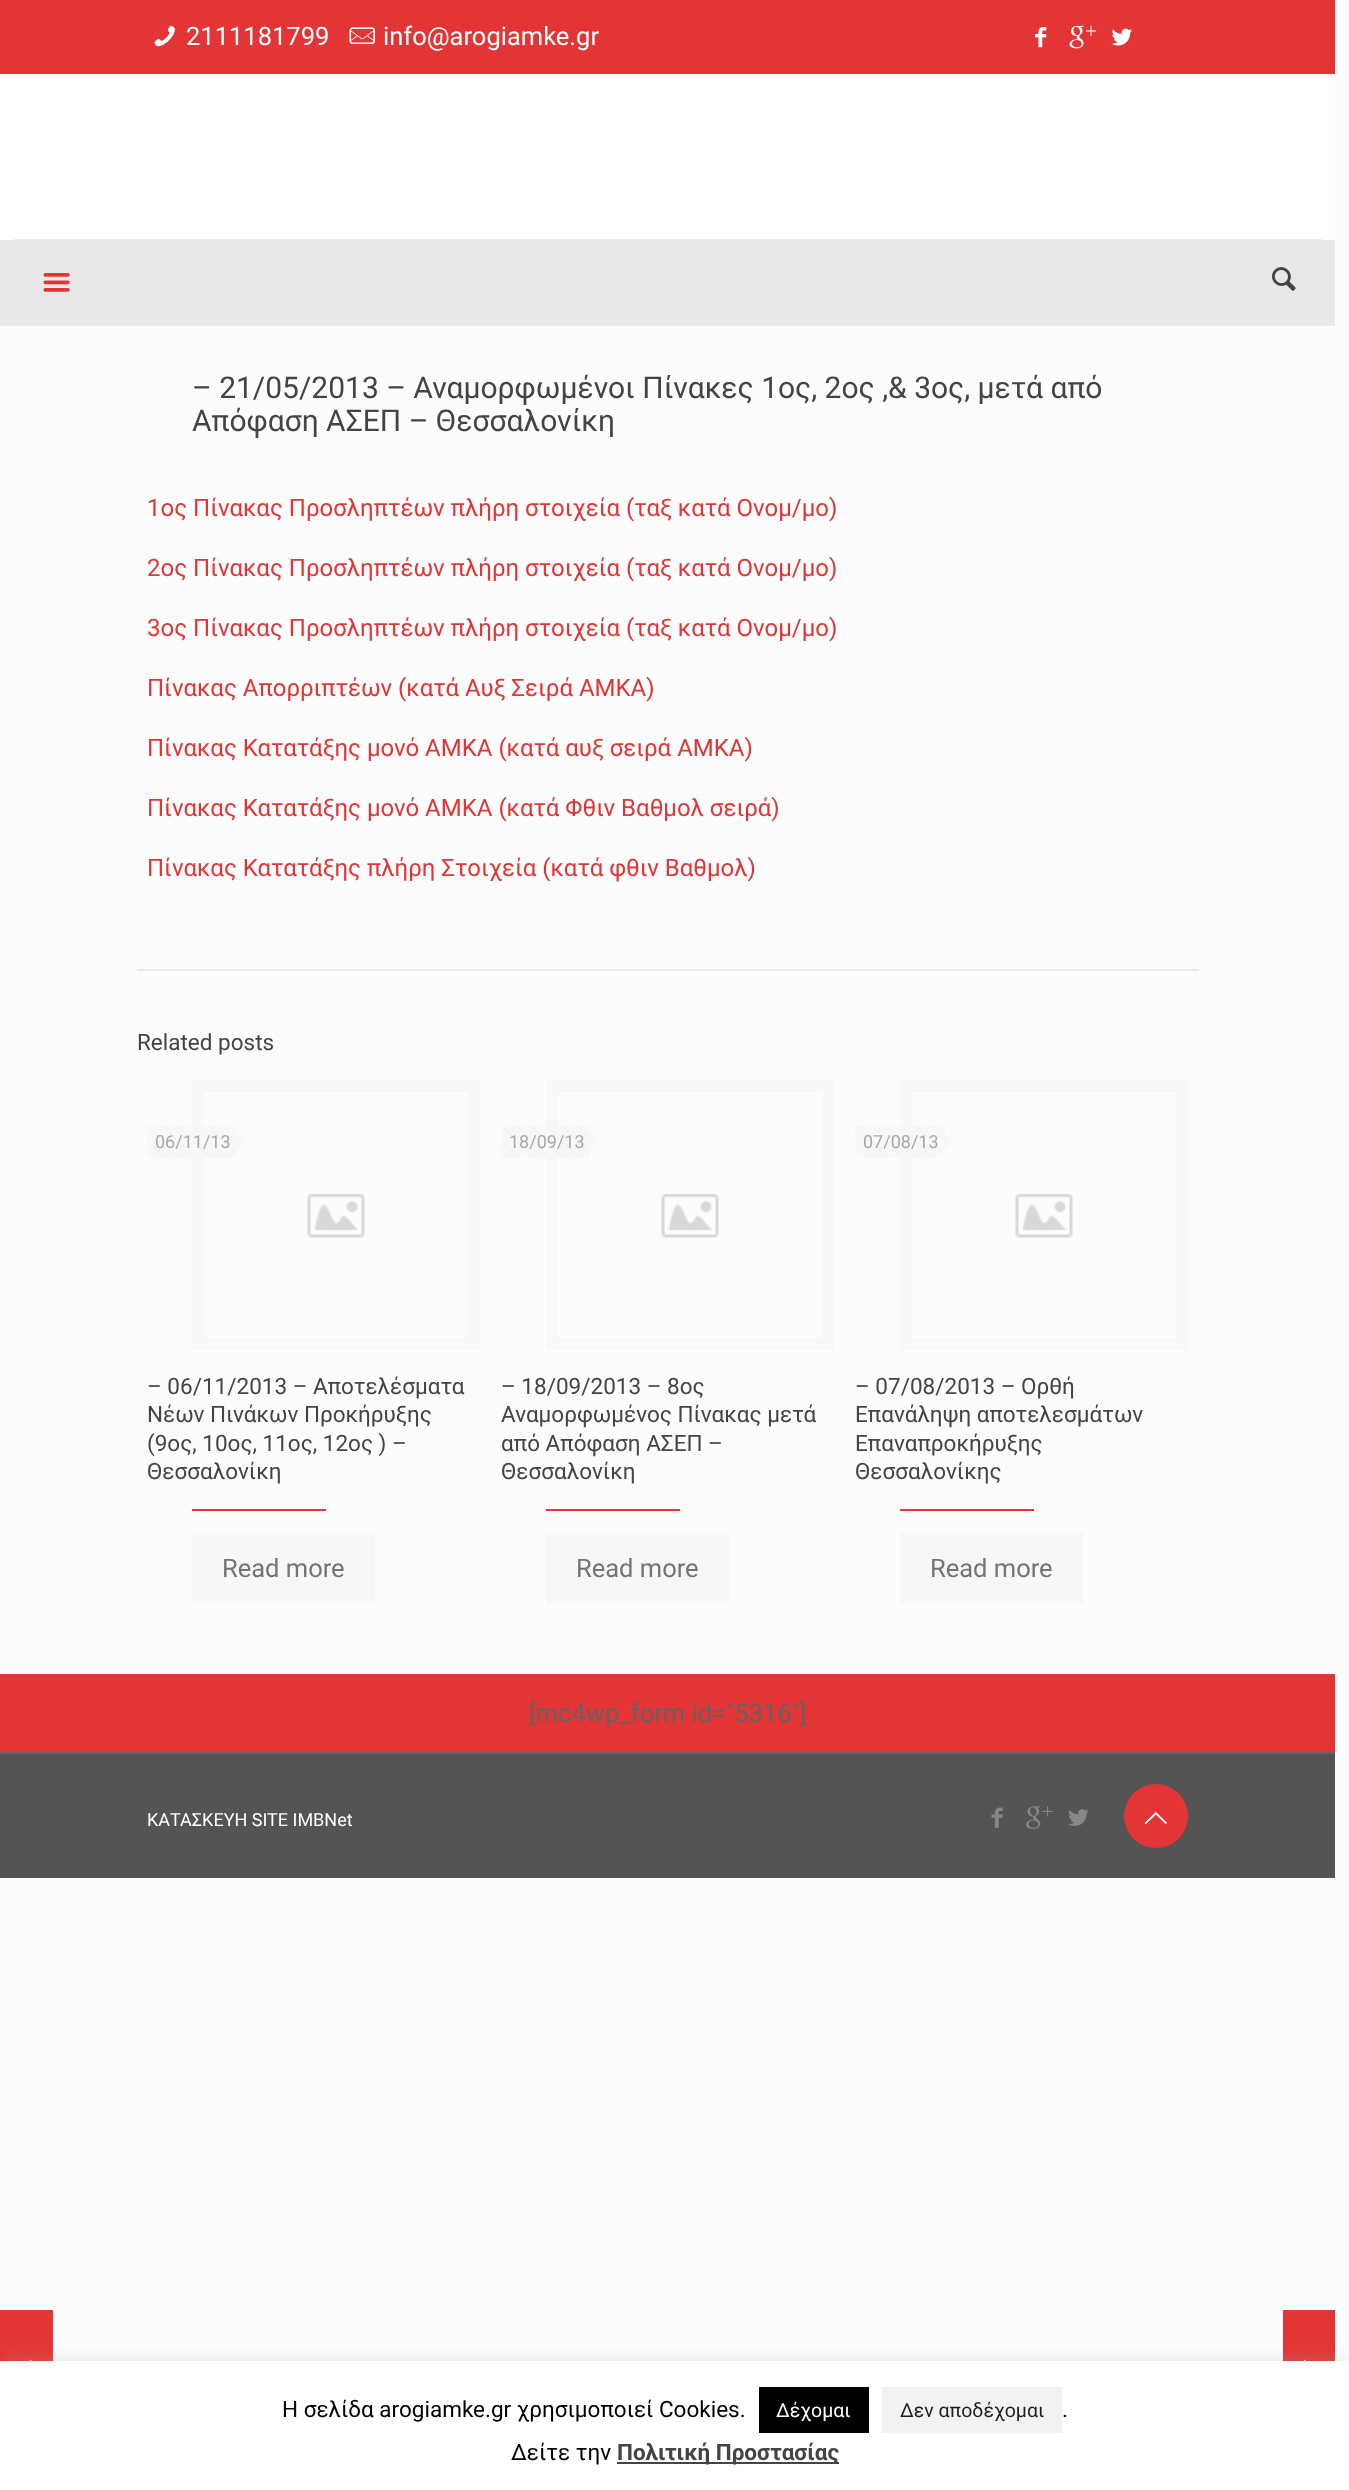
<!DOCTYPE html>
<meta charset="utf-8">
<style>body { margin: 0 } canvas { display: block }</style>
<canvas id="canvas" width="1349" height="2490"></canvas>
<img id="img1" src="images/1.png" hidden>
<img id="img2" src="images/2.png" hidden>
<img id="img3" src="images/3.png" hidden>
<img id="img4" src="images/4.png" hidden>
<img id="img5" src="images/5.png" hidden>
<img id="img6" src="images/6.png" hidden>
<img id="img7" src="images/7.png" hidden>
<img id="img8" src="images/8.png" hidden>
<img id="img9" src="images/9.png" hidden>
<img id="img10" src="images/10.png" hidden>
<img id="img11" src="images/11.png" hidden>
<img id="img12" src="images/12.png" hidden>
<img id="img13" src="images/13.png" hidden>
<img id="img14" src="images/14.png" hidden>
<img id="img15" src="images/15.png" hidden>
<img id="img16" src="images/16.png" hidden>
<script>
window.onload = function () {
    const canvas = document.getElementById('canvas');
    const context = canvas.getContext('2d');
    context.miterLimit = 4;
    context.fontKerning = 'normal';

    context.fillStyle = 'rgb(252, 252, 252)';
    context.fillRect(0, 0, 1349, 2490);
    context.fillStyle = 'rgb(227, 53, 53)';
    context.fillRect(0, 0, 1335, 74);
    context.drawImage(document.getElementById('img1'), 154, 25, 21, 22);
    context.drawImage(document.getElementById('img2'), 349, 27, 26, 17);
    context.drawImage(document.getElementById('img3'), 1035, 27, 12, 21);
    context.drawImage(document.getElementById('img4'), 1069, 25, 28, 24);
    context.drawImage(document.getElementById('img5'), 1111, 28, 21, 18);
    context.fillStyle = 'rgb(255, 255, 255)';
    context.fillRect(0, 74, 1335, 166);
    context.fillStyle = 'rgb(235, 235, 235)';
    context.fillRect(14, 239, 1308, 1);
    context.fillStyle = 'rgb(231, 232, 232)';
    context.fillRect(0, 240, 1335, 86);
    context.drawImage(document.getElementById('img6'), 43, 273, 27, 19);
    context.drawImage(document.getElementById('img7'), 1272, 267, 24, 24);
    context.fillStyle = 'rgb(232, 232, 232)';
    context.fillRect(137, 969, 1062, 2);
    context.drawImage(document.getElementById('img8'), 307, 1194, 58, 44);
    context.strokeStyle = 'rgb(248, 248, 248)';
    context.lineWidth = 12;
    context.strokeRect(198, 1086, 276, 258);
    context.fillStyle = 'rgb(248, 248, 248)';
    context.beginPath();
    context.roundRect(147, 1125, 90, 33, 6);
    context.fill();
    context.drawImage(document.getElementById('img9'), 149, 1127, 88, 31);
    context.beginPath();
    context.moveTo(237, 1149);
    context.lineTo(237, 1134);
    context.lineTo(244.5, 1141.5);
    context.closePath();
    context.fill();
    context.fillStyle = 'rgb(227, 53, 53)';
    context.fillRect(192, 1509, 134, 2);
    context.fillStyle = 'rgb(247, 247, 247)';
    context.fillRect(192, 1533, 183, 71);
    context.drawImage(document.getElementById('img10'), 661, 1194, 58, 44);
    context.strokeRect(552, 1086, 276, 258);
    context.fillStyle = 'rgb(248, 248, 248)';
    context.beginPath();
    context.roundRect(501, 1125, 90, 33, 6);
    context.fill();
    context.drawImage(document.getElementById('img9'), 503, 1127, 88, 31);
    context.beginPath();
    context.moveTo(591, 1149);
    context.lineTo(591, 1134);
    context.lineTo(598.5, 1141.5);
    context.closePath();
    context.fill();
    context.fillStyle = 'rgb(227, 53, 53)';
    context.fillRect(546, 1509, 134, 2);
    context.fillStyle = 'rgb(247, 247, 247)';
    context.fillRect(546, 1533, 183, 71);
    context.drawImage(document.getElementById('img8'), 1015, 1194, 58, 44);
    context.strokeRect(906, 1086, 276, 258);
    context.fillStyle = 'rgb(248, 248, 248)';
    context.beginPath();
    context.roundRect(855, 1125, 90, 33, 6);
    context.fill();
    context.drawImage(document.getElementById('img9'), 857, 1127, 88, 31);
    context.beginPath();
    context.moveTo(945, 1149);
    context.lineTo(945, 1134);
    context.lineTo(952.5, 1141.5);
    context.closePath();
    context.fill();
    context.fillStyle = 'rgb(227, 53, 53)';
    context.fillRect(900, 1509, 134, 2);
    context.fillStyle = 'rgb(247, 247, 247)';
    context.fillRect(900, 1533, 183, 71);
    context.fillStyle = 'rgb(227, 53, 53)';
    context.fillRect(0, 1674, 1335, 78);
    context.fillStyle = 'rgb(84, 84, 84)';
    context.fillRect(0, 1754, 1335, 124);
    context.fillStyle = 'rgb(101, 101, 101)';
    context.fillRect(0, 1752, 1335, 2);
    context.drawImage(document.getElementById('img11'), 991, 1807, 12, 21);
    context.drawImage(document.getElementById('img12'), 1026, 1806, 27, 23);
    context.drawImage(document.getElementById('img13'), 1068, 1809, 21, 17);
    context.fillStyle = 'rgb(227, 53, 53)';
    context.beginPath();
    context.arc(1156, 1816, 32, 0, 2 * Math.PI);
    context.fill();
    context.drawImage(document.getElementById('img14'), 1144, 1812, 23, 12);
    context.fillRect(0, 2310, 53, 51);
    context.drawImage(document.getElementById('img15'), 29, 2359, 3, 2);
    context.fillRect(1283, 2310, 52, 51);
    context.drawImage(document.getElementById('img16'), 1303, 2359, 3, 2);
    context.fillStyle = 'rgba(172, 171, 171, 0.3)';
    context.filter = 'blur(7.5px)';
    context.beginPath();
    context.rect(0, 2360, 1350, 129);
    context.fill();
    context.filter = 'none';
    context.fillStyle = 'rgb(255, 255, 255)';
    context.fillRect(0, 2361, 1349, 129);
    context.fillStyle = 'rgb(0, 0, 0)';
    context.fillRect(759, 2387, 110, 46);
    context.fillStyle = 'rgb(242, 242, 242)';
    context.fillRect(882, 2387, 180, 46);
    context.fillStyle = 'rgb(68, 68, 68)';
    context.fillRect(617, 2462, 222, 2);
    context.font = '25.5px Roboto';
    context.fillStyle = 'rgb(255, 255, 255)';
    context.fillText('2111181799', 186, 45);
    context.fillText('info@arogiamke.gr', 383, 45);
    context.font = '30px Roboto';
    context.fillStyle = 'rgb(68, 68, 68)';
    context.fillText('– 21/05/2013 – Αναμορφωμένοι Πίνακες 1ος, 2ος ,& 3ος, μετά από', 192, 398);
    context.fillText('Απόφαση ΑΣΕΠ – Θεσσαλονίκη', 192, 431);
    context.font = '24px Roboto';
    context.fillStyle = 'rgb(227, 53, 53)';
    context.fillText('1ος Πίνακας Προσληπτέων πλήρη στοιχεία (ταξ κατά Ονομ/μο)', 147, 516);
    context.fillText('2ος Πίνακας Προσληπτέων πλήρη στοιχεία (ταξ κατά Ονομ/μο)', 147, 576);
    context.fillText('3ος Πίνακας Προσληπτέων πλήρη στοιχεία (ταξ κατά Ονομ/μο)', 147, 636);
    context.fillText('Πίνακας Απορριπτέων (κατά Αυξ Σειρά ΑΜΚΑ)', 147, 696);
    context.fillText('Πίνακας Κατατάξης μονό ΑΜΚΑ (κατά αυξ σειρά ΑΜΚΑ)', 147, 756);
    context.fillText('Πίνακας Κατατάξης μονό ΑΜΚΑ (κατά Φθιν Βαθμολ σειρά)', 147, 816);
    context.fillText('Πίνακας Κατατάξης πλήρη Στοιχεία (κατά φθιν Βαθμολ)', 147, 876);
    context.font = '22.5px Roboto';
    context.fillStyle = 'rgb(68, 68, 68)';
    context.fillText('Related posts', 137, 1050);
    context.font = '18px Roboto';
    context.fillStyle = 'rgb(168, 168, 168)';
    context.fillText('06/11/13', 155, 1148);
    context.font = '22.5px Roboto';
    context.fillStyle = 'rgb(68, 68, 68)';
    context.fillText('– 06/11/2013 – Αποτελέσματα', 147, 1394);
    context.fillText('Νέων Πινάκων Προκήρυξης', 147, 1422);
    context.fillText('(9ος, 10ος, 11ος, 12ος ) –', 147, 1451);
    context.fillText('Θεσσαλονίκη', 147, 1479);
    context.font = '25.5px Roboto';
    context.fillStyle = 'rgb(116, 116, 116)';
    context.fillText('Read more', 222, 1577);
    context.font = '18px Roboto';
    context.fillStyle = 'rgb(168, 168, 168)';
    context.fillText('18/09/13', 509, 1148);
    context.font = '22.5px Roboto';
    context.fillStyle = 'rgb(68, 68, 68)';
    context.fillText('– 18/09/2013 – 8ος', 501, 1394);
    context.fillText('Αναμορφωμένος Πίνακας μετά', 501, 1422);
    context.fillText('από Απόφαση ΑΣΕΠ –', 501, 1451);
    context.fillText('Θεσσαλονίκη', 501, 1479);
    context.font = '25.5px Roboto';
    context.fillStyle = 'rgb(116, 116, 116)';
    context.fillText('Read more', 576, 1577);
    context.font = '18px Roboto';
    context.fillStyle = 'rgb(168, 168, 168)';
    context.fillText('07/08/13', 863, 1148);
    context.font = '22.5px Roboto';
    context.fillStyle = 'rgb(68, 68, 68)';
    context.fillText('– 07/08/2013 – Ορθή', 855, 1394);
    context.fillText('Επανάληψη αποτελεσμάτων', 855, 1422);
    context.fillText('Επαναπροκήρυξης', 855, 1451);
    context.fillText('Θεσσαλονίκης', 855, 1479);
    context.font = '25.5px Roboto';
    context.fillStyle = 'rgb(116, 116, 116)';
    context.fillText('Read more', 930, 1577);
    context.fillStyle = 'rgb(98, 98, 98)';
    context.fillText('[mc4wp_form id="5316"]', 529, 1722);
    context.font = '18px Roboto';
    context.fillStyle = 'rgb(255, 255, 255)';
    context.fillText('ΚΑΤΑΣΚΕΥΗ SITE IMBNet', 147, 1826);
    context.font = '22.5px Roboto';
    context.fillStyle = 'rgb(0, 0, 0)';
    context.fillText('Η σελίδα arogiamke.gr χρησιμοποιεί Cookies.', 282, 2417);
    context.font = '19.5px Roboto';
    context.fillStyle = 'rgb(255, 255, 255)';
    context.fillText('Δέχομαι', 776, 2417);
    context.fillStyle = 'rgb(30, 30, 30)';
    context.fillText('Δεν αποδέχομαι', 900, 2417);
    context.font = '22.5px Roboto';
    context.fillStyle = 'rgb(0, 0, 0)';
    context.fillText('.', 1062, 2417);
    context.fillText('Δείτε την', 511, 2460);
    context.font = 'bold 22.5px Roboto';
    context.fillStyle = 'rgb(68, 68, 68)';
    context.fillText('Πολιτική Προστασίας', 617, 2460);
};
</script>
